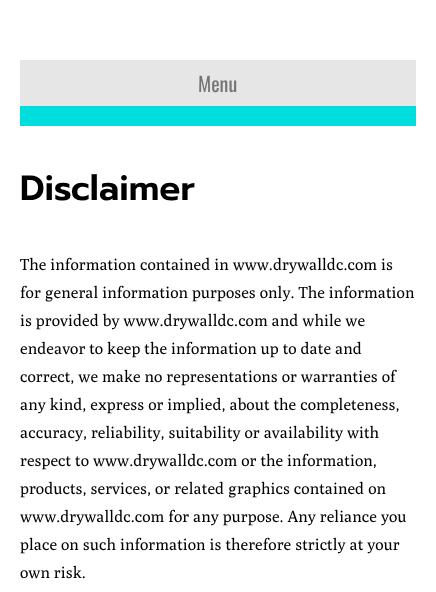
<!DOCTYPE html>
<meta charset="utf-8">
<style>body { margin: 0 } canvas { display: block }</style>
<canvas id="canvas" width="436" height="592"></canvas>
<script>
window.onload = function () {
    const canvas = document.getElementById('canvas');
    const context = canvas.getContext('2d');
    context.miterLimit = 4;
    context.fontKerning = 'normal';

    context.fillStyle = 'rgb(255, 255, 255)';
    context.fillRect(0, 0, 436, 592);
    context.fillStyle = 'rgb(0, 221, 221)';
    context.fillRect(20, 106, 396, 20);
    context.fillStyle = 'rgb(230, 230, 230)';
    context.fillRect(20, 60, 396, 46);
    context.font = '20px Oswald';
    context.fillStyle = 'rgb(117, 117, 117)';
    context.fillText('Menu', 198, 92);
    context.font = '600 35px Prompt';
    context.fillStyle = 'rgb(0, 0, 0)';
    context.fillText('Disclaimer', 20, 200);
    context.font = '16px Poly';
    context.fillText('The information contained in www.drywalldc.com is', 20, 270);
    context.fillText('for general information purposes only. The information', 20, 298);
    context.fillText('is provided by www.drywalldc.com and while we', 20, 326);
    context.fillText('endeavor to keep the information up to date and', 20, 354);
    context.fillText('correct, we make no representations or warranties of', 20, 382);
    context.fillText('any kind, express or implied, about the completeness,', 20, 410);
    context.fillText('accuracy, reliability, suitability or availability with', 20, 438);
    context.fillText('respect to www.drywalldc.com or the information,', 20, 466);
    context.fillText('products, services, or related graphics contained on', 20, 494);
    context.fillText('www.drywalldc.com for any purpose. Any reliance you', 20, 522);
    context.fillText('place on such information is therefore strictly at your', 20, 550);
    context.fillText('own risk.', 20, 578);
};
</script>
